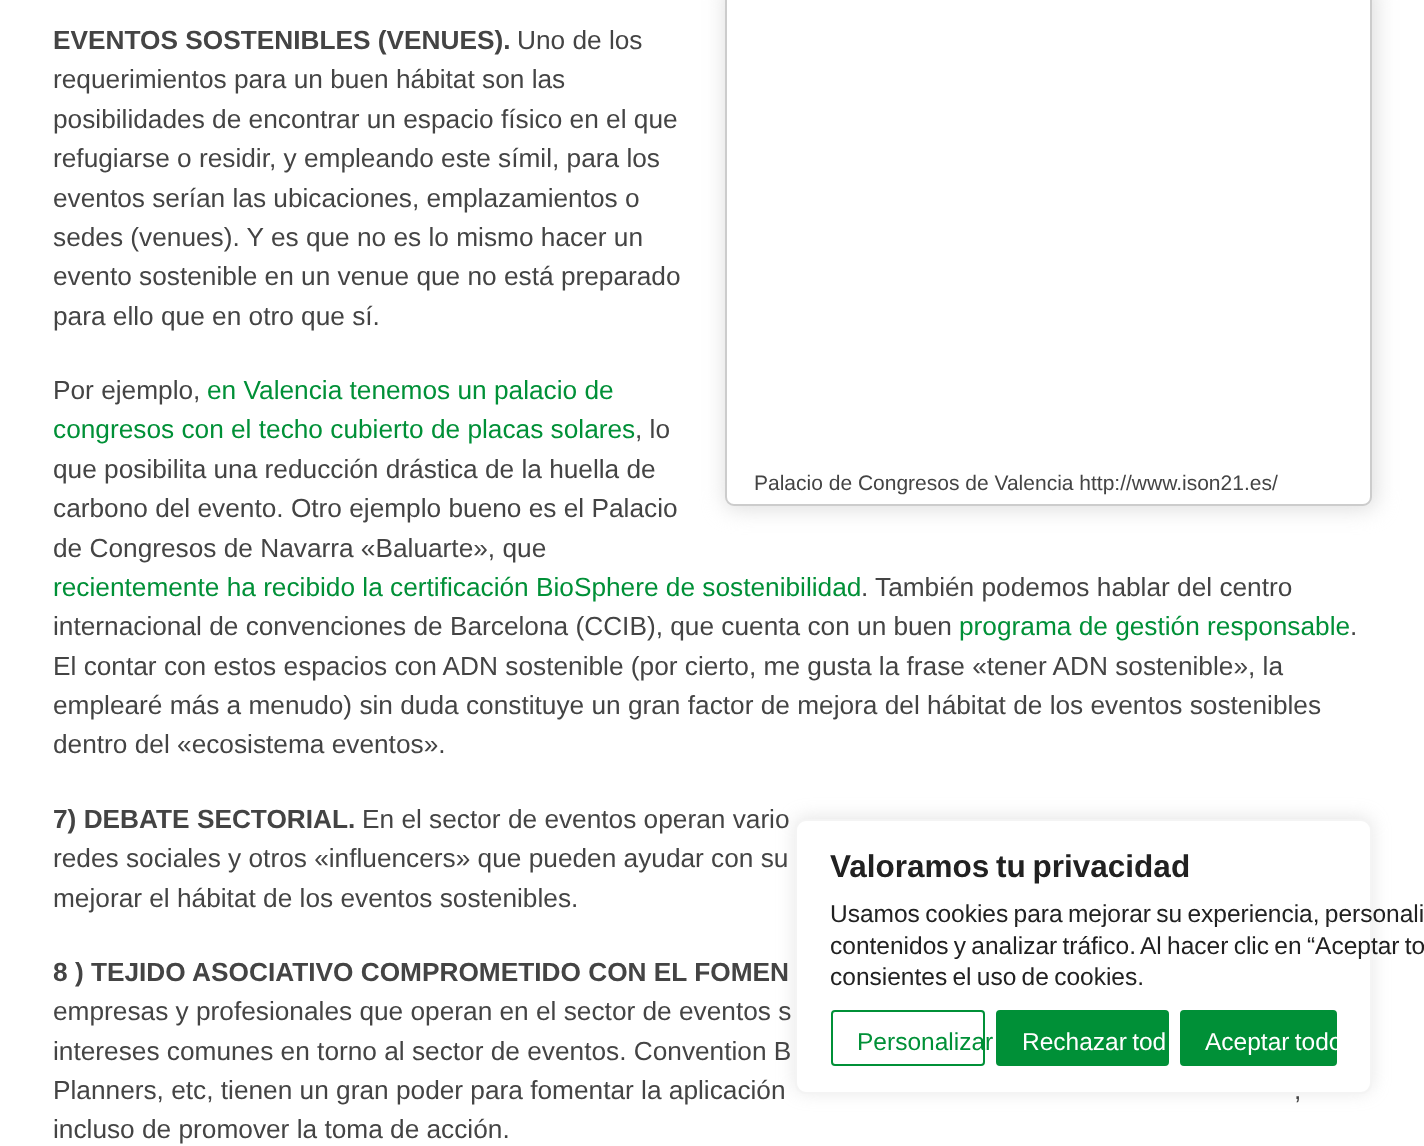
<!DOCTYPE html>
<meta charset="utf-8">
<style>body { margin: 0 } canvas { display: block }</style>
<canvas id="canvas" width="1424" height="1146"></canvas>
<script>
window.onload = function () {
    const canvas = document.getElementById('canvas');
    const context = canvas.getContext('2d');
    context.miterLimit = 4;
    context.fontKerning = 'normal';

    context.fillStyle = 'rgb(255, 255, 255)';
    context.fillRect(0, 0, 1424, 1146);
    context.fillStyle = 'rgb(221, 221, 221)';
    context.filter = 'blur(10.5px)';
    context.beginPath();
    context.roundRect(725, -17, 651, 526, 11);
    context.fill();
    context.filter = 'none';
    context.fillStyle = 'rgb(255, 255, 255)';
    context.beginPath();
    context.roundRect(726, -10, 645, 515, 8);
    context.fill();
    context.strokeStyle = 'rgb(204, 204, 204)';
    context.lineWidth = 2;
    context.stroke();
    context.fillStyle = 'rgba(172, 171, 171, 0.3)';
    context.filter = 'blur(9px)';
    context.beginPath();
    context.roundRect(795, 817, 577, 275, 11);
    context.fill();
    context.filter = 'none';
    context.fillStyle = 'rgb(255, 255, 255)';
    context.beginPath();
    context.roundRect(796, 820, 575, 273, 10);
    context.fill();
    context.strokeStyle = 'rgb(244, 244, 244)';
    context.stroke();
    context.beginPath();
    context.roundRect(832, 1011, 152, 54, 3);
    context.strokeStyle = 'rgb(0, 144, 55)';
    context.stroke();
    context.fillStyle = 'rgb(0, 144, 55)';
    context.beginPath();
    context.roundRect(997, 1011, 171, 54, 3);
    context.fill();
    context.stroke();
    context.beginPath();
    context.roundRect(1181, 1011, 155, 54, 3);
    context.fill();
    context.stroke();
    context.font = 'bold 26.25px Liberation Sans';
    context.fillStyle = 'rgb(68, 68, 68)';
    context.fillText('EVENTOS SOSTENIBLES (VENUES).', 53, 49);
    context.font = '26.25px Liberation Sans';
    context.fillText('Uno de los', 517, 49);
    context.fillText('requerimientos para un buen hábitat son las', 53, 88);
    context.fillText('posibilidades de encontrar un espacio físico en el que', 53, 128);
    context.fillText('refugiarse o residir, y empleando este símil, para los', 53, 167);
    context.fillText('eventos serían las ubicaciones, emplazamientos o', 53, 207);
    context.fillText('sedes (venues). Y es que no es lo mismo hacer un', 53, 246);
    context.fillText('evento sostenible en un venue que no está preparado', 53, 285);
    context.fillText('para ello que en otro que sí.', 53, 325);
    context.fillText('Por ejemplo,', 53, 399);
    context.fillStyle = 'rgb(0, 144, 55)';
    context.fillText('en Valencia tenemos un palacio de', 207, 399);
    context.fillText('congresos con el techo cubierto de placas solares', 53, 438);
    context.fillStyle = 'rgb(68, 68, 68)';
    context.fillText(', lo', 635, 438);
    context.fillText('que posibilita una reducción drástica de la huella de', 53, 478);
    context.fillText('carbono del evento. Otro ejemplo bueno es el Palacio', 53, 517);
    context.fillText('de Congresos de Navarra «Baluarte», que', 53, 557);
    context.fillStyle = 'rgb(0, 144, 55)';
    context.fillText('recientemente ha recibido la certificación BioSphere de sostenibilidad', 53, 596);
    context.fillStyle = 'rgb(68, 68, 68)';
    context.fillText('.', 861, 596);
    context.fillText('También podemos hablar del centro', 875, 596);
    context.fillText('internacional de convenciones de Barcelona (CCIB), que cuenta con un buen', 53, 635);
    context.fillStyle = 'rgb(0, 144, 55)';
    context.fillText('programa de gestión responsable', 959, 635);
    context.fillStyle = 'rgb(68, 68, 68)';
    context.fillText('.', 1350, 635);
    context.fillText('El contar con estos espacios con ADN sostenible (por cierto, me gusta la frase «tener ADN sostenible», la', 53, 675);
    context.fillText('emplearé más a menudo) sin duda constituye un gran factor de mejora del hábitat de los eventos sostenibles', 53, 714);
    context.fillText('dentro del «ecosistema eventos».', 53, 753);
    context.font = '21px Liberation Sans';
    context.fillText('Palacio de Congresos de Valencia http://www.ison21.es/', 754, 490);
    context.font = 'bold 26.25px Liberation Sans';
    context.fillText('7) DEBATE SECTORIAL.', 53, 828);
    context.font = '26.25px Liberation Sans';
    context.fillText('En el sector de eventos operan vario', 362, 828);
    context.fillText('redes sociales y otros «influencers» que pueden ayudar con su', 53, 867);
    context.fillText('mejorar el hábitat de los eventos sostenibles.', 53, 907);
    context.font = 'bold 26.25px Liberation Sans';
    context.fillText('8 ) TEJIDO ASOCIATIVO COMPROMETIDO CON EL FOMEN', 53, 981);
    context.font = '26.25px Liberation Sans';
    context.fillText('empresas y profesionales que operan en el sector de eventos s', 53, 1020);
    context.fillText('intereses comunes en torno al sector de eventos. Convention B', 53, 1060);
    context.fillText('Planners, etc, tienen un gran poder para fomentar la aplicación', 53, 1099);
    context.fillText(',', 1294, 1099);
    context.fillText('incluso de promover la toma de acción.', 53, 1138);
    context.wordSpacing = '-2px';
    context.font = 'bold 31.5px Liberation Sans';
    context.fillStyle = 'rgb(33, 33, 33)';
    context.fillText('Valoramos tu privacidad', 830, 877);
    context.wordSpacing = '-1.5px';
    context.font = '24.5px Liberation Sans';
    context.fillText('Usamos cookies para mejorar su experiencia, personali', 830, 922);
    context.fillText('contenidos y analizar tráfico. Al hacer clic en “Aceptar to', 830, 954);
    context.fillText('consientes el uso de cookies.', 830, 985);
    context.wordSpacing = '0px';
    context.fillStyle = 'rgb(0, 144, 55)';
    context.fillText('Personalizar', 857, 1050);
    context.wordSpacing = '-1.5px';
    context.fillStyle = 'rgb(255, 255, 255)';
    context.fillText('Rechazar tod', 1022, 1050);
    context.fillText('Aceptar todo', 1205, 1050);
};
</script>
